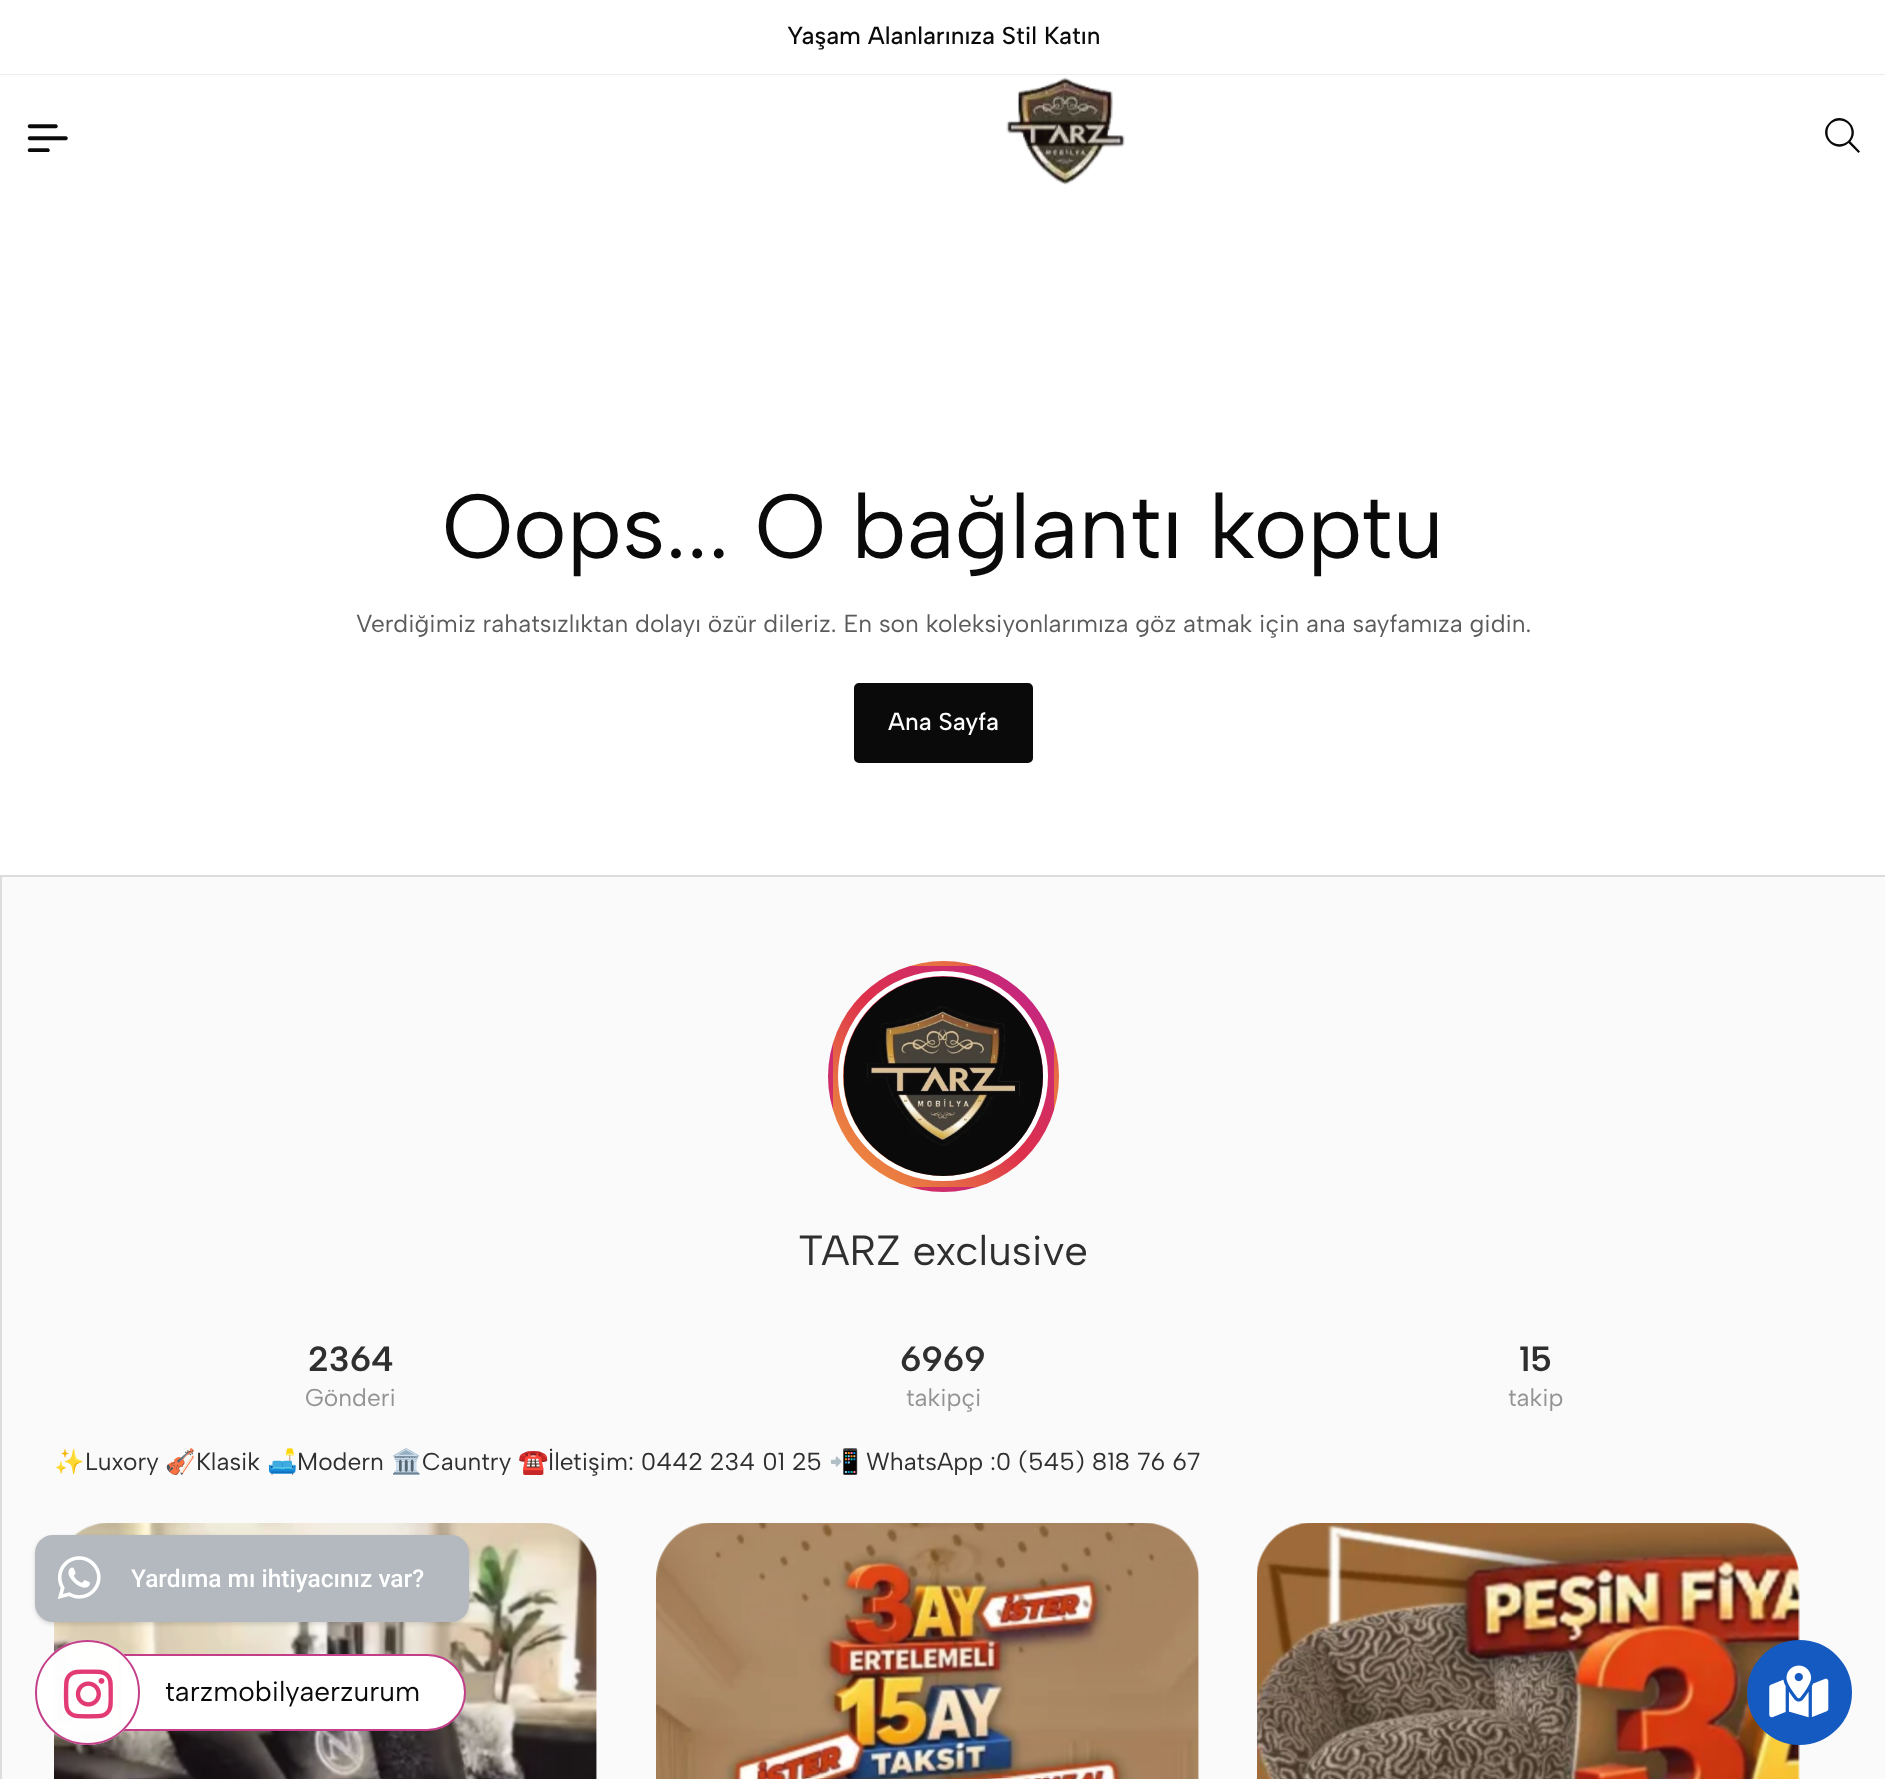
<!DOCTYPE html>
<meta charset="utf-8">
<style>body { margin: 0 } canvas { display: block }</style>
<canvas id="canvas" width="1885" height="1779"></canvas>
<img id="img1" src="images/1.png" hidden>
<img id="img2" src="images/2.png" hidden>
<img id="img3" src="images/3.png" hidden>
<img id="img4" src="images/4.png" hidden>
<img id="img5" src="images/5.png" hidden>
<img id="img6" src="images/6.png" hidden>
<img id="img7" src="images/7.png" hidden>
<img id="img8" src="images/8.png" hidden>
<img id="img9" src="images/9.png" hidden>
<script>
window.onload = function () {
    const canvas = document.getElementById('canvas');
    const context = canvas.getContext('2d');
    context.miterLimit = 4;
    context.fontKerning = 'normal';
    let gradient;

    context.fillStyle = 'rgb(255, 255, 255)';
    context.fillRect(0, 0, 1885, 1779);
    context.fillStyle = 'rgb(236, 236, 236)';
    context.fillRect(0, 74, 1885, 1);
    context.drawImage(document.getElementById('img1'), 27, 124, 41, 28);
    context.drawImage(document.getElementById('img2'), 1006, 77, 119, 108);
    context.fillStyle = 'rgb(10, 10, 10)';
    context.beginPath();
    context.moveTo(1851.5, 132.5);
    context.bezierCurveTo(1851.5, 116.5, 1827.5, 116.5, 1827.5, 132.5);
    context.bezierCurveTo(1827.5, 148, 1851.5, 148, 1851.5, 132.5);
    context.closePath();
    context.moveTo(1848.5, 143);
    context.bezierCurveTo(1835, 155, 1816.5, 135, 1829.5, 122.5);
    context.bezierCurveTo(1842, 109.5, 1862, 128, 1850.5, 141.5);
    context.lineTo(1860, 151.5);
    context.lineTo(1858.5, 153);
    context.closePath();
    context.fill();
    context.beginPath();
    context.roundRect(855, 684, 177, 78, 4);
    context.fill();
    context.strokeStyle = 'rgb(10, 10, 10)';
    context.lineWidth = 2;
    context.stroke();
    context.fillStyle = 'rgb(250, 250, 250)';
    context.beginPath();
    context.rect(1, 876, 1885, 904);
    context.fill();
    context.strokeStyle = 'rgb(220, 220, 220)';
    context.stroke();
    context.save();
    context.beginPath();
    context.roundRect(828, 961, 231, 231, 115.5);
    context.clip();
    gradient = context.createLinearGradient(833, 966, 1054, 746);
    gradient.addColorStop(0, 'rgb(241, 152, 59)');
    gradient.addColorStop(0.25, 'rgb(231, 110, 68)');
    gradient.addColorStop(0.5, 'rgb(221, 48, 75)');
    gradient.addColorStop(0.75, 'rgb(206, 44, 108)');
    gradient.addColorStop(1, 'rgb(191, 33, 141)');
    context.fillStyle = gradient;
    context.fillRect(910, 961, 67, 5);
    gradient = context.createLinearGradient(613, 1187, 833, 966);
    gradient.addColorStop(0, 'rgb(241, 152, 59)');
    gradient.addColorStop(0.25, 'rgb(231, 110, 68)');
    gradient.addColorStop(0.5, 'rgb(221, 48, 75)');
    gradient.addColorStop(0.75, 'rgb(206, 44, 108)');
    gradient.addColorStop(1, 'rgb(191, 33, 141)');
    context.fillStyle = gradient;
    context.fillRect(828, 1043, 5, 67);
    gradient = context.createLinearGradient(833, 1187, 1054, 966);
    gradient.addColorStop(0, 'rgb(241, 152, 59)');
    gradient.addColorStop(0.25, 'rgb(231, 110, 68)');
    gradient.addColorStop(0.5, 'rgb(221, 48, 75)');
    gradient.addColorStop(0.75, 'rgb(206, 44, 108)');
    gradient.addColorStop(1, 'rgb(191, 33, 141)');
    context.fillStyle = gradient;
    context.fillRect(833, 966, 221, 221);
    gradient = context.createLinearGradient(1054, 1187, 1274, 966);
    gradient.addColorStop(0, 'rgb(241, 152, 59)');
    gradient.addColorStop(0.25, 'rgb(231, 110, 68)');
    gradient.addColorStop(0.5, 'rgb(221, 48, 75)');
    gradient.addColorStop(0.75, 'rgb(206, 44, 108)');
    gradient.addColorStop(1, 'rgb(191, 33, 141)');
    context.fillStyle = gradient;
    context.fillRect(1054, 1043, 5, 67);
    gradient = context.createLinearGradient(833, 1407, 1054, 1187);
    gradient.addColorStop(0, 'rgb(241, 152, 59)');
    gradient.addColorStop(0.25, 'rgb(231, 110, 68)');
    gradient.addColorStop(0.5, 'rgb(221, 48, 75)');
    gradient.addColorStop(0.75, 'rgb(206, 44, 108)');
    gradient.addColorStop(1, 'rgb(191, 33, 141)');
    context.fillStyle = gradient;
    context.fillRect(910, 1187, 67, 5);
    context.restore();
    context.beginPath();
    context.arc(943, 1076, 102.5, 0, 2 * Math.PI);
    context.strokeStyle = 'rgb(255, 255, 255)';
    context.lineWidth = 5;
    context.stroke();
    context.drawImage(document.getElementById('img3'), 843, 976, 200, 200);
    context.drawImage(document.getElementById('img4'), 54, 1523, 543, 256);
    context.drawImage(document.getElementById('img5'), 656, 1523, 543, 256);
    context.drawImage(document.getElementById('img6'), 1257, 1523, 543, 256);
    context.fillStyle = 'rgba(10, 10, 10, 0.15)';
    context.filter = 'blur(2px)';
    context.beginPath();
    context.roundRect(35, 1537, 434, 87, 18);
    context.fill();
    context.filter = 'none';
    context.fillStyle = 'rgb(179, 185, 190)';
    context.beginPath();
    context.roundRect(35, 1535, 434, 87, 18);
    context.fill();
    context.drawImage(document.getElementById('img7'), 57, 1556, 44, 43);
    context.fillStyle = 'rgb(255, 255, 255)';
    context.beginPath();
    context.roundRect(120, 1655, 345, 75, [0, 37.5, 37.5, 0]);
    context.fill();
    context.strokeStyle = 'rgb(195, 61, 137)';
    context.lineWidth = 2;
    context.stroke();
    context.fillStyle = 'rgba(255, 255, 255, 0.99)';
    context.beginPath();
    context.arc(87.5, 1692.5, 52.5, 0, 2 * Math.PI);
    context.fill();
    context.beginPath();
    context.arc(87.5, 1692.5, 51.5, 0, 2 * Math.PI);
    context.strokeStyle = 'rgba(195, 61, 137, 0.99)';
    context.stroke();
    context.drawImage(document.getElementById('img8'), 63, 1669, 50, 50);
    context.fillStyle = 'rgb(20, 90, 193)';
    context.beginPath();
    context.arc(1799.5, 1692.5, 51.5, 0, 2 * Math.PI);
    context.fill();
    context.strokeStyle = 'rgb(20, 90, 193)';
    context.stroke();
    context.drawImage(document.getElementById('img9'), 1769, 1665, 60, 53);
    context.font = '500 24.5px Albert Sans';
    context.fillStyle = 'rgb(10, 10, 10)';
    context.fillText('Yaşam Alanlarınıza Stil Katın', 787, 44);
    context.font = '91px Albert Sans';
    context.fillText('Oops... O bağlantı koptu', 442, 558);
    context.font = '24.5px Albert Sans';
    context.fillStyle = 'rgb(91, 91, 91)';
    context.fillText('Verdiğimiz rahatsızlıktan dolayı özür dileriz. En son koleksiyonlarımıza göz atmak için ana sayfamıza gidin.', 356, 632);
    context.font = '500 24.5px Albert Sans';
    context.fillStyle = 'rgb(255, 255, 255)';
    context.fillText('Ana Sayfa', 888, 730);
    context.font = '42px Albert Sans';
    context.fillStyle = 'rgb(47, 47, 47)';
    context.fillText('TARZ exclusive', 798, 1265);
    context.font = '600 35px Albert Sans';
    context.fillText('2364', 308, 1371);
    context.font = '24.5px Albert Sans';
    context.fillStyle = 'rgb(147, 147, 147)';
    context.fillText('Gönderi', 305, 1406);
    context.font = '600 35px Albert Sans';
    context.fillStyle = 'rgb(47, 47, 47)';
    context.fillText('6969', 900, 1371);
    context.font = '24.5px Albert Sans';
    context.fillStyle = 'rgb(147, 147, 147)';
    context.fillText('takipçi', 906, 1406);
    context.font = '600 35px Albert Sans';
    context.fillStyle = 'rgb(47, 47, 47)';
    context.fillText('15', 1519, 1371);
    context.font = '24.5px Albert Sans';
    context.fillStyle = 'rgb(147, 147, 147)';
    context.fillText('takip', 1508, 1406);
    context.font = '24.5px Noto Color Emoji';
    context.fillStyle = 'rgb(47, 47, 47)';
    context.fillText('✨', 54, 1470);
    context.font = '24.5px Albert Sans';
    context.fillText('Luxory', 85, 1470);
    context.font = '24.5px Noto Color Emoji';
    context.fillText('🎻', 165, 1470);
    context.font = '24.5px Albert Sans';
    context.fillText('Klasik', 196, 1470);
    context.font = '24.5px Noto Color Emoji';
    context.fillText('🛋️', 267, 1470);
    context.font = '24.5px Albert Sans';
    context.fillText('Modern', 297, 1470);
    context.font = '24.5px Noto Color Emoji';
    context.fillText('🏛️', 391, 1470);
    context.font = '24.5px Albert Sans';
    context.fillText('Cauntry', 422, 1470);
    context.font = '24.5px Noto Color Emoji';
    context.fillText('☎️', 518, 1470);
    context.font = '24.5px Albert Sans';
    context.fillText('İletişim: 0442 234 01 25', 548, 1470);
    context.font = '24.5px Noto Color Emoji';
    context.fillText('📲', 829, 1470);
    context.font = '24.5px Albert Sans';
    context.fillText('WhatsApp :0 (545) 818 76 67', 866, 1470);
    context.font = '500 24.5px Roboto';
    context.fillStyle = 'rgb(255, 255, 255)';
    context.fillText('Yardıma mı ihtiyacınız var?', 131, 1587);
    context.font = '28px Albert Sans';
    context.fillStyle = 'rgb(10, 10, 10)';
    context.fillText('tarzmobilyaerzurum', 165, 1701);
};
</script>
